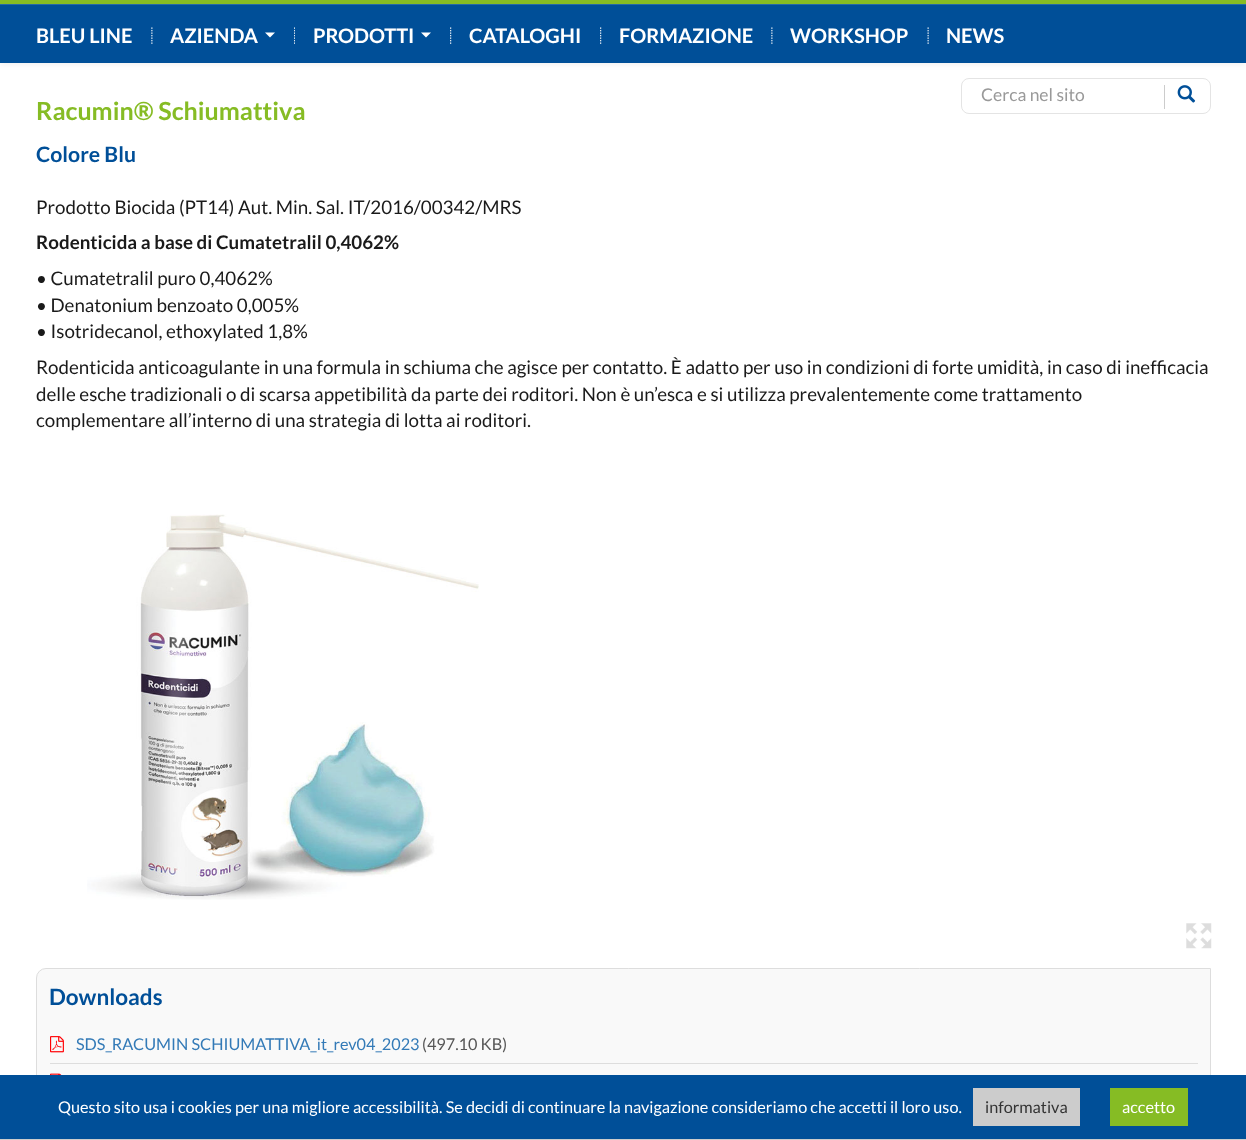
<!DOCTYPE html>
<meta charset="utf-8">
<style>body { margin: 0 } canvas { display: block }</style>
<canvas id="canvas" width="1246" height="1140"></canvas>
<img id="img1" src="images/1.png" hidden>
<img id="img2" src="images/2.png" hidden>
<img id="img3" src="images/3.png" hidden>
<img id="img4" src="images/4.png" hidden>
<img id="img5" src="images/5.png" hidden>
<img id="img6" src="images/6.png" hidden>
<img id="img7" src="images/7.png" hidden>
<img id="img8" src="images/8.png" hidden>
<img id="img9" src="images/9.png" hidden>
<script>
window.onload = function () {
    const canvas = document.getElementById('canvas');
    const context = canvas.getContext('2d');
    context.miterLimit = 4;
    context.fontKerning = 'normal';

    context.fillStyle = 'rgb(255, 255, 255)';
    context.fillRect(0, 0, 1246, 1140);
    context.fillStyle = 'rgba(0, 0, 0, 0.07)';
    context.filter = 'blur(3px)';
    context.beginPath();
    context.rect(0, 1, 1246, 63);
    context.fill();
    context.filter = 'none';
    context.fillStyle = 'rgb(0, 79, 152)';
    context.fillRect(0, 5, 1246, 58);
    context.fillStyle = 'rgb(38, 105, 167)';
    context.fillRect(0, 4, 1246, 1);
    context.fillStyle = 'rgb(134, 188, 36)';
    context.fillRect(0, 0, 1246, 4);
    context.drawImage(document.getElementById('img1'), 151, 27, 2, 17);
    context.fillStyle = 'rgb(255, 255, 255)';
    context.beginPath();
    context.moveTo(265, 32.5);
    context.lineTo(275, 32.5);
    context.lineTo(270, 37.5);
    context.closePath();
    context.fill();
    context.drawImage(document.getElementById('img2'), 294, 27, 1, 17);
    context.beginPath();
    context.moveTo(421, 32.5);
    context.lineTo(431, 32.5);
    context.lineTo(426, 37.5);
    context.closePath();
    context.fill();
    context.drawImage(document.getElementById('img3'), 450, 27, 2, 17);
    context.drawImage(document.getElementById('img3'), 600, 27, 2, 17);
    context.drawImage(document.getElementById('img1'), 771, 27, 2, 17);
    context.drawImage(document.getElementById('img4'), 927, 27, 2, 17);
    context.beginPath();
    context.roundRect(961.5, 78.5, 249, 35, 7.5);
    context.strokeStyle = 'rgb(228, 228, 228)';
    context.stroke();
    context.fillStyle = 'rgb(204, 204, 204)';
    context.fillRect(1164, 85, 1, 24);
    context.drawImage(document.getElementById('img5'), 1177, 85, 19, 18);
    context.drawImage(document.getElementById('img6'), 87, 514, 392, 386);
    context.drawImage(document.getElementById('img7'), 1186, 923, 26, 26);
    context.fillStyle = 'rgb(249, 249, 249)';
    context.beginPath();
    context.roundRect(36.5, 968.5, 1174, 150, [9.5, 0, 9.5, 0]);
    context.fill();
    context.strokeStyle = 'rgb(221, 221, 221)';
    context.stroke();
    context.fillStyle = 'rgb(221, 221, 221)';
    context.fillRect(50, 1063, 1148, 1);
    context.drawImage(document.getElementById('img8'), 50, 1036, 14, 17);
    context.drawImage(document.getElementById('img9'), 50, 1073, 12, 2);
    context.fillStyle = 'rgb(0, 79, 152)';
    context.fillRect(0, 1075, 1246, 64);
    context.fillStyle = 'rgb(204, 204, 204)';
    context.fillRect(0, 1139, 1246, 1);
    context.fillRect(973, 1088, 107, 38);
    context.fillStyle = 'rgb(134, 188, 36)';
    context.fillRect(1110, 1088, 78, 38);
    context.font = 'bold 20px Lato';
    context.fillStyle = 'rgb(255, 255, 255)';
    context.fillText('BLEU LINE', 36, 43);
    context.fillText('AZIENDA', 170, 43);
    context.fillText('PRODOTTI', 313, 43);
    context.fillText('CATALOGHI', 469, 43);
    context.fillText('FORMAZIONE', 619, 43);
    context.fillText('WORKSHOP', 790, 43);
    context.fillText('NEWS', 946, 43);
    context.font = '17.5px Lato';
    context.fillStyle = 'rgb(153, 153, 153)';
    context.fillText('Cerca nel sito', 981, 101);
    context.font = 'bold 25px Lato';
    context.fillStyle = 'rgb(134, 188, 36)';
    context.fillText('Racumin® Schiumattiva', 36, 120);
    context.font = 'bold 21.25px Lato';
    context.fillStyle = 'rgb(0, 79, 152)';
    context.fillText('Colore Blu', 36, 162);
    context.font = '18.75px Lato';
    context.fillStyle = 'rgb(26, 26, 26)';
    context.fillText('Prodotto Biocida (PT14) Aut. Min. Sal. IT/2016/00342/MRS', 36, 214);
    context.font = 'bold 18.75px Lato';
    context.fillText('Rodenticida a base di Cumatetralil 0,4062%', 36, 249);
    context.font = '18.75px Lato';
    context.fillText('• Cumatetralil puro 0,4062%', 36, 285);
    context.fillText('• Denatonium benzoato 0,005%', 36, 312);
    context.fillText('• Isotridecanol, ethoxylated 1,8%', 36, 338);
    context.fillText('Rodenticida anticoagulante in una formula in schiuma che agisce per contatto. È adatto per uso in condizioni di forte umidità, in caso di inefficacia', 36, 374);
    context.fillText('delle esche tradizionali o di scarsa appetibilità da parte dei roditori. Non è un’esca e si utilizza prevalentemente come trattamento', 36, 401);
    context.fillText('complementare all’interno di una strategia di lotta ai roditori.', 36, 427);
    context.font = 'bold 22.5px Lato';
    context.fillStyle = 'rgb(0, 79, 152)';
    context.fillText('Downloads', 49, 1005);
    context.font = '16.25px Lato';
    context.fillStyle = 'rgb(51, 122, 183)';
    context.fillText('SDS_RACUMIN SCHIUMATTIVA_it_rev04_2023', 76, 1050);
    context.fillStyle = 'rgb(87, 87, 87)';
    context.fillText('(497.10 KB)', 422, 1050);
    context.fillStyle = 'rgb(255, 255, 255)';
    context.fillText('Questo sito usa i cookies per una migliore accessibilità. Se decidi di continuare la navigazione consideriamo che accetti il loro uso.', 58, 1113);
    context.fillStyle = 'rgb(51, 51, 51)';
    context.fillText('informativa', 985, 1113);
    context.fillStyle = 'rgb(255, 255, 255)';
    context.fillText('accetto', 1122, 1113);
};
</script>
